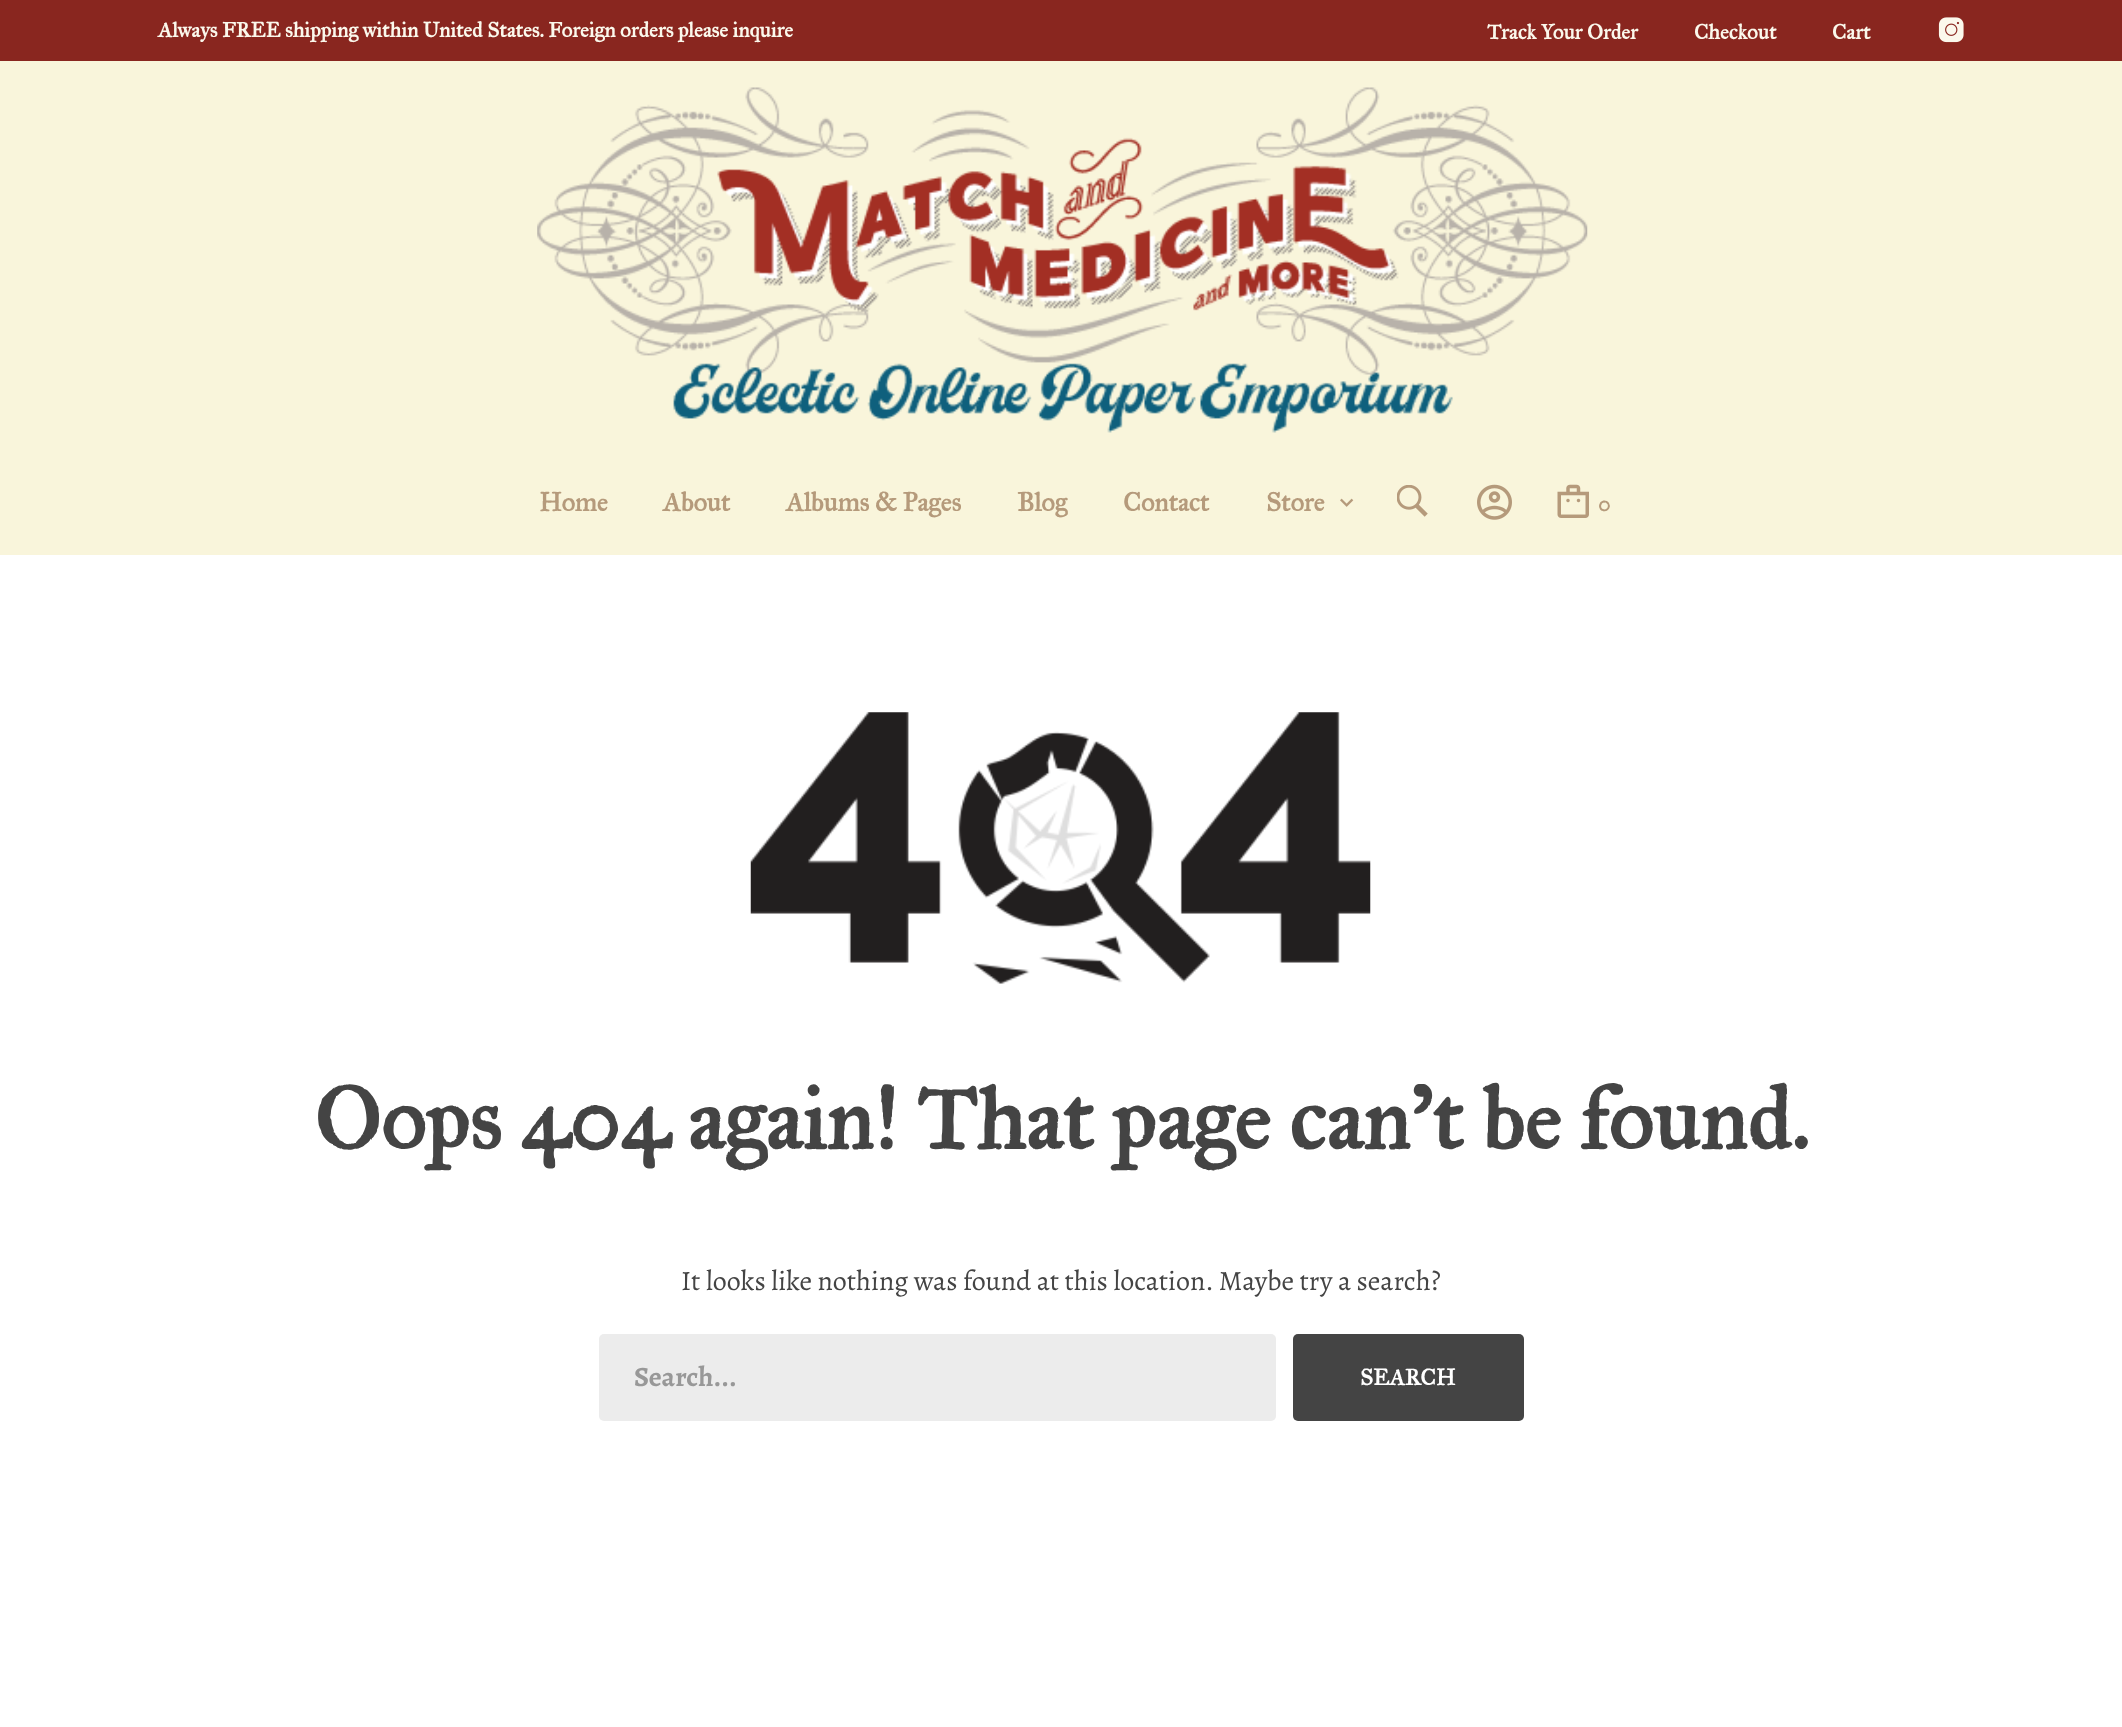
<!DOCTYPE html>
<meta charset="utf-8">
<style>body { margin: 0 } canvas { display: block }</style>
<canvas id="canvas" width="2122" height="1727"></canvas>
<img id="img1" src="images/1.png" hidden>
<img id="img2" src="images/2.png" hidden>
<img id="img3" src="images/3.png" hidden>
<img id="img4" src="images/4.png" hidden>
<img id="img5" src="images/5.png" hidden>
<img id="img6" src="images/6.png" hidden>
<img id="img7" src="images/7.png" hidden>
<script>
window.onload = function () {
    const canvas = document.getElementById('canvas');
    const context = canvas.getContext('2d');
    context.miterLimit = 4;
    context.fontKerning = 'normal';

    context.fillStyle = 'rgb(255, 255, 255)';
    context.fillRect(0, 0, 2122, 1727);
    context.fillStyle = 'rgb(137, 38, 31)';
    context.fillRect(0, 0, 2122, 61);
    context.drawImage(document.getElementById('img1'), 1938, 17, 26, 26);
    context.fillStyle = 'rgb(249, 245, 219)';
    context.fillRect(0, 61, 2122, 494);
    context.drawImage(document.getElementById('img2'), 537, 87, 1051, 346);
    context.drawImage(document.getElementById('img3'), 1340, 498, 14, 9);
    context.drawImage(document.getElementById('img4'), 1397, 485, 31, 32);
    context.drawImage(document.getElementById('img5'), 1477, 484, 35, 36);
    context.drawImage(document.getElementById('img6'), 1557, 484, 32, 34);
    context.drawImage(document.getElementById('img7'), 750, 712, 621, 272);
    context.fillStyle = 'rgb(236, 236, 236)';
    context.beginPath();
    context.roundRect(599, 1334, 677, 87, 5);
    context.fill();
    context.fillStyle = 'rgb(68, 68, 68)';
    context.beginPath();
    context.roundRect(1293, 1334, 231, 87, 5);
    context.fill();
    context.font = 'bold 21px IM FELL Great Primer';
    context.fillStyle = 'rgb(251, 248, 236)';
    context.fillText('Always FREE shipping within United States. Foreign orders please inquire', 158, 37);
    context.fillText('Track Your Order', 1487, 39);
    context.fillText('Checkout', 1694, 39);
    context.fillText('Cart', 1832, 39);
    context.font = 'bold 26.25px IM FELL Great Primer';
    context.fillStyle = 'rgb(181, 154, 123)';
    context.fillText('Home', 539, 511);
    context.fillText('About', 663, 511);
    context.fillText('Albums & Pages', 786, 511);
    context.fillText('Blog', 1017, 511);
    context.fillText('Contact', 1123, 511);
    context.fillText('Store', 1266, 511);
    context.font = 'bold 21px IM FELL Great Primer';
    context.fillText('0', 1598, 511);
    context.font = 'bold 87.5px IM FELL Great Primer';
    context.fillStyle = 'rgb(68, 68, 68)';
    context.fillText('Oops 404 again! That page can’t be found.', 314, 1149);
    context.font = '28px Alegreya';
    context.fillText('It looks like nothing was found at this location. Maybe try a search?', 681, 1290);
    context.font = 'bold 28px Alegreya';
    context.fillStyle = 'rgb(152, 152, 152)';
    context.fillText('Search...', 634, 1386);
    context.font = 'bold 22.75px IM FELL Great Primer';
    context.fillStyle = 'rgb(255, 255, 255)';
    context.fillText('SEARCH', 1360, 1385);
};
</script>
